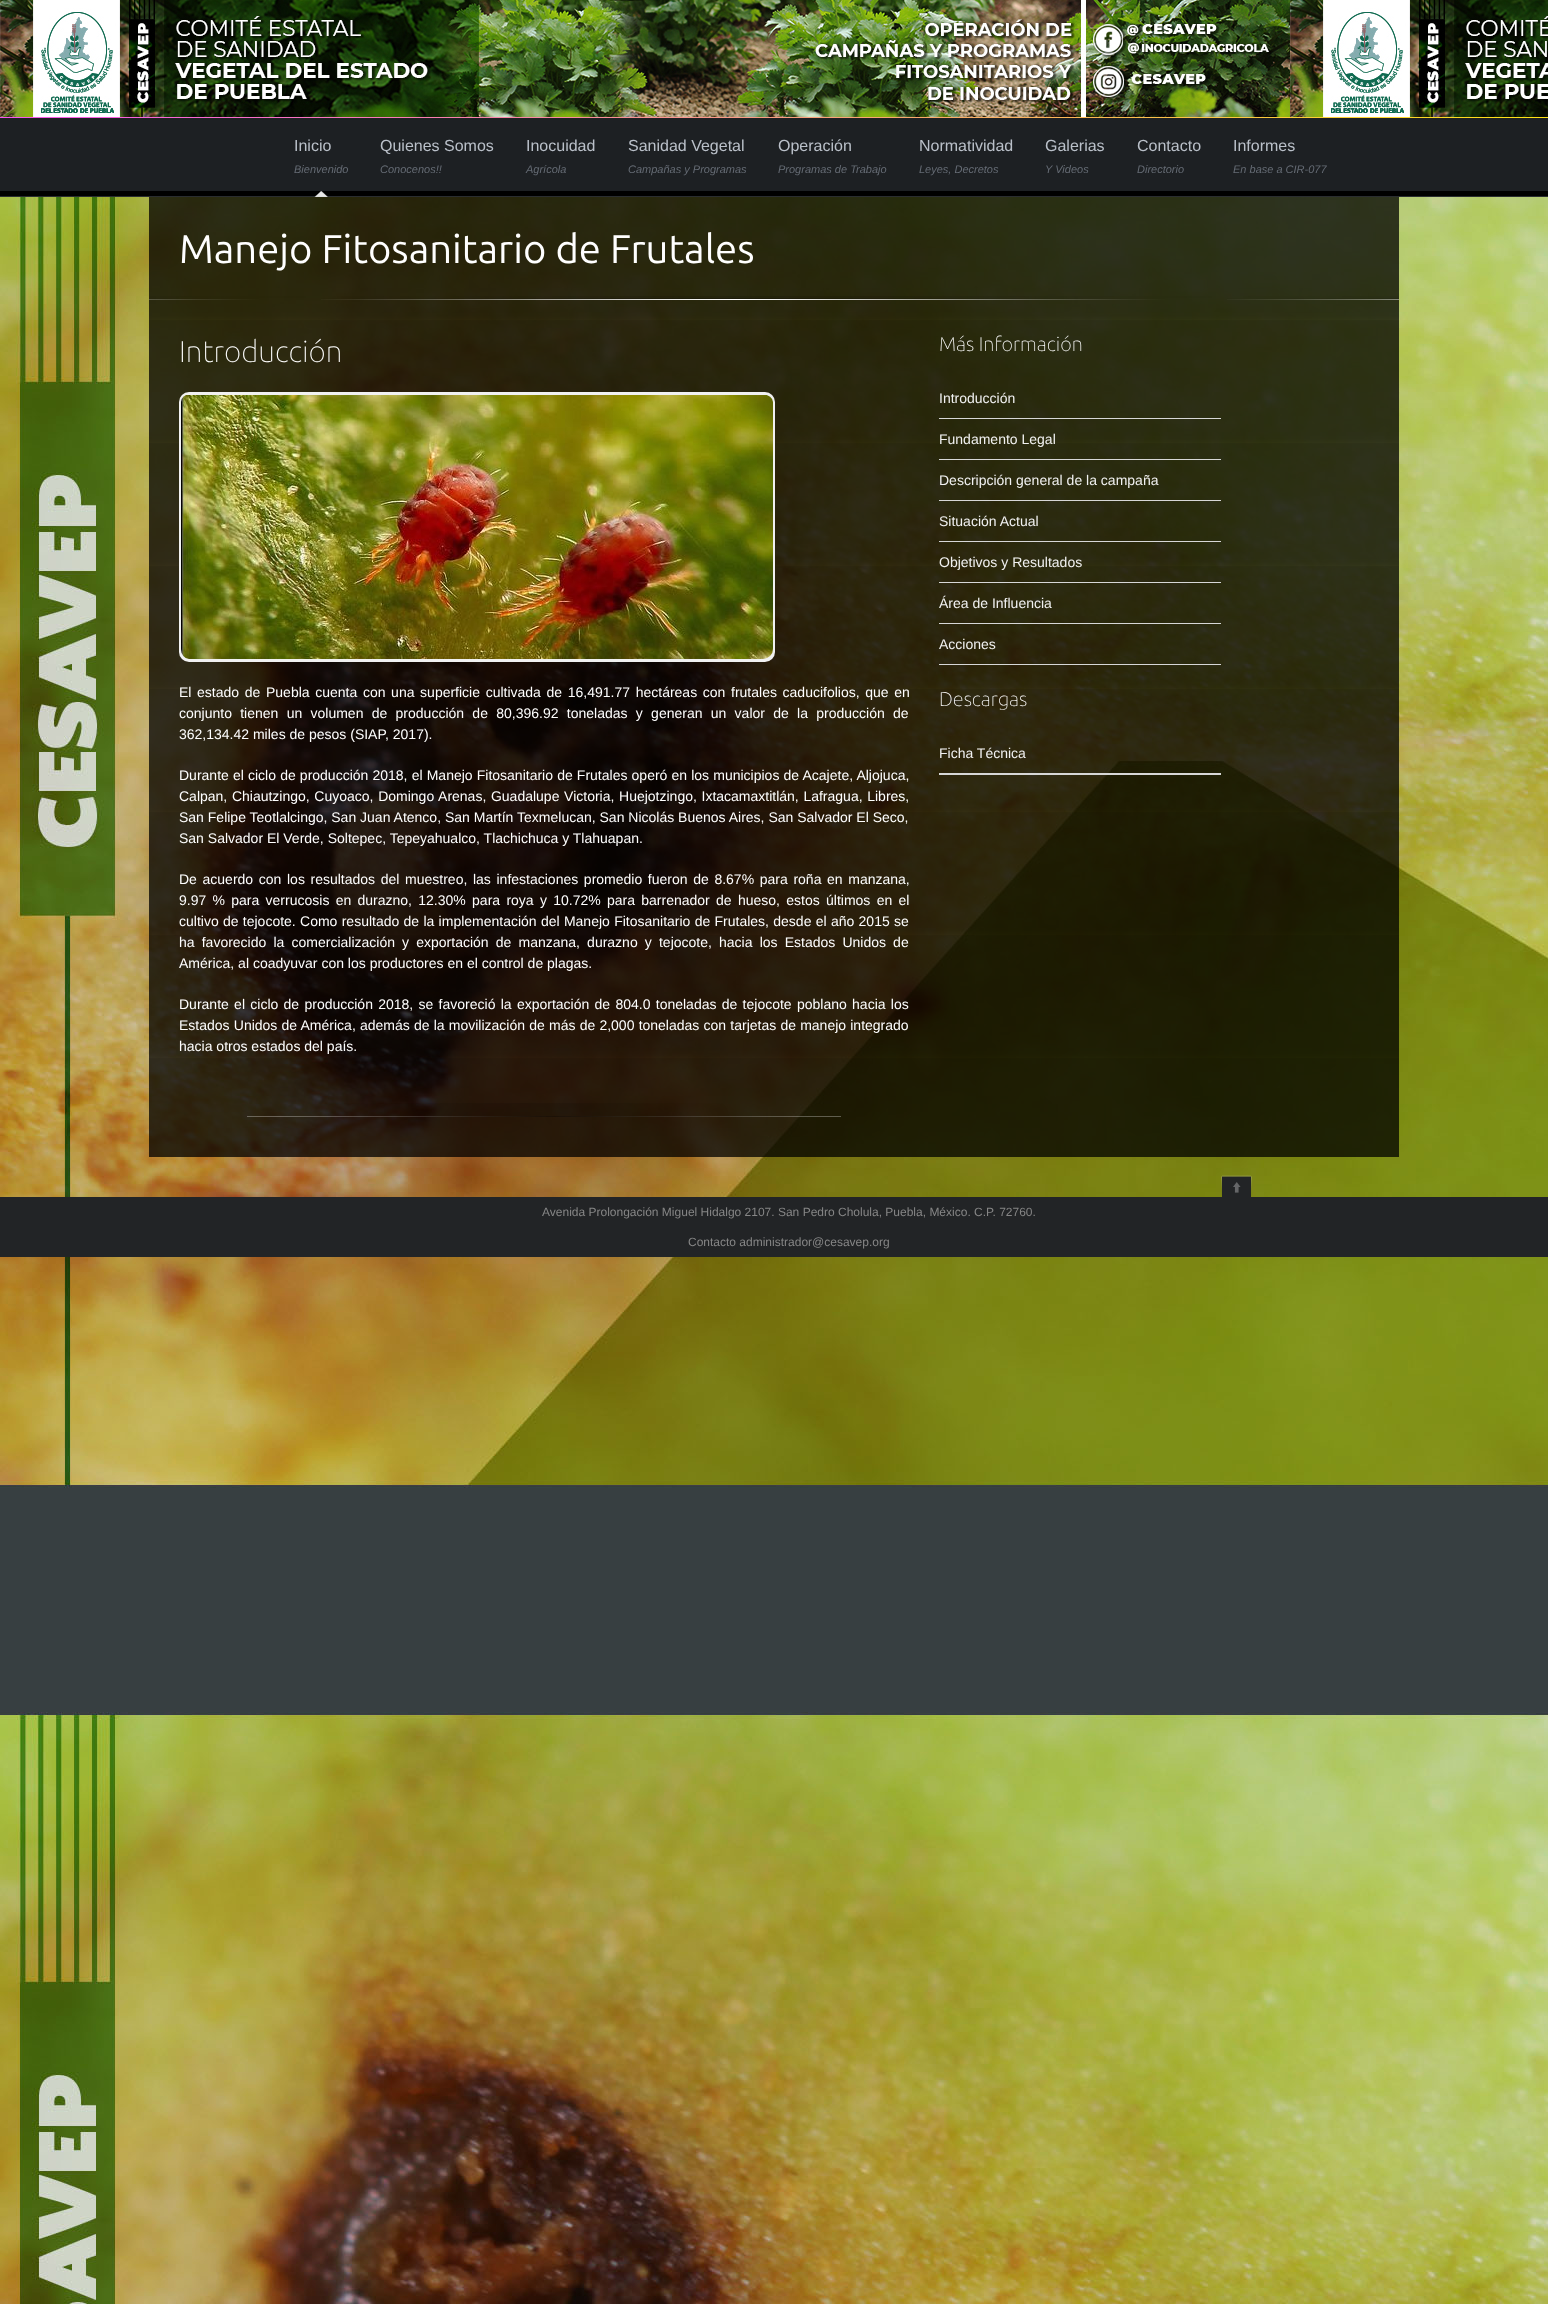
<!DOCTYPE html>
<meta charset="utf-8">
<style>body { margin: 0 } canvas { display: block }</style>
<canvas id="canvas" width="1548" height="2304"></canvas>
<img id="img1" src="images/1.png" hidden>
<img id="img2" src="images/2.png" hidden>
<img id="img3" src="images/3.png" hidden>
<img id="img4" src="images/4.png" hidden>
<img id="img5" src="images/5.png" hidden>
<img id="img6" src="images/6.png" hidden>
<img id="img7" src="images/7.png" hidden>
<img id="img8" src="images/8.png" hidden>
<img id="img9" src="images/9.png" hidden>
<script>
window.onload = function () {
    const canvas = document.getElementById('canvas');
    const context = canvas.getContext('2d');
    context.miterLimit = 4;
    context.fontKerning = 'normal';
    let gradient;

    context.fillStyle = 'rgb(255, 255, 255)';
    context.fillRect(0, 0, 1548, 2304);
    context.drawImage(document.getElementById('img1'), 0, 197, 1548, 2107);
    context.drawImage(document.getElementById('img2'), 0, 0, 1548, 117);
    gradient = context.createLinearGradient(0, 117, 1548, 197);
    gradient.addColorStop(0, 'rgb(248, 88, 239)');
    gradient.addColorStop(1, 'rgb(255, 228, 19)');
    context.fillStyle = gradient;
    context.fillRect(0, 117, 1548, 1);
    context.drawImage(document.getElementById('img3'), 0, 118, 1548, 79);
    context.drawImage(document.getElementById('img4'), 314, 191, 14, 6);
    context.drawImage(document.getElementById('img5'), 149, 197, 1250, 960);
    context.drawImage(document.getElementById('img6'), 149, 296, 1250, 4);
    context.fillStyle = 'rgb(241, 241, 241)';
    context.beginPath();
    context.roundRect(179, 392, 596, 270, 10);
    context.fill();
    context.drawImage(document.getElementById('img7'), 181, 395, 592, 264);
    context.drawImage(document.getElementById('img8'), 247, 1103, 594, 14);
    context.fillStyle = 'rgb(215, 215, 215)';
    context.fillRect(939, 418, 282, 1);
    context.fillRect(939, 459, 282, 1);
    context.fillRect(939, 500, 282, 1);
    context.fillRect(939, 541, 282, 1);
    context.fillRect(939, 582, 282, 1);
    context.fillRect(939, 623, 282, 1);
    context.fillRect(939, 664, 282, 1);
    context.fillRect(939, 773, 282, 2);
    context.fillStyle = 'rgb(34, 36, 38)';
    context.fillRect(0, 1197, 1548, 60);
    context.drawImage(document.getElementById('img9'), 1221, 1175, 31, 22);
    context.font = '16px Liberation Sans';
    context.fillStyle = 'rgb(186, 192, 201)';
    context.fillText('Inicio', 294, 151);
    context.font = 'italic 11px Liberation Sans';
    context.fillStyle = 'rgb(101, 107, 116)';
    context.fillText('Bienvenido', 294, 173);
    context.font = '16px Liberation Sans';
    context.fillStyle = 'rgb(186, 192, 201)';
    context.fillText('Quienes Somos', 380, 151);
    context.font = 'italic 11px Liberation Sans';
    context.fillStyle = 'rgb(101, 107, 116)';
    context.fillText('Conocenos!!', 380, 173);
    context.font = '16px Liberation Sans';
    context.fillStyle = 'rgb(186, 192, 201)';
    context.fillText('Inocuidad', 526, 151);
    context.font = 'italic 11px Liberation Sans';
    context.fillStyle = 'rgb(101, 107, 116)';
    context.fillText('Agrícola', 526, 173);
    context.font = '16px Liberation Sans';
    context.fillStyle = 'rgb(186, 192, 201)';
    context.fillText('Sanidad Vegetal', 628, 151);
    context.font = 'italic 11px Liberation Sans';
    context.fillStyle = 'rgb(101, 107, 116)';
    context.fillText('Campañas y Programas', 628, 173);
    context.font = '16px Liberation Sans';
    context.fillStyle = 'rgb(186, 192, 201)';
    context.fillText('Operación', 778, 151);
    context.font = 'italic 11px Liberation Sans';
    context.fillStyle = 'rgb(101, 107, 116)';
    context.fillText('Programas de Trabajo', 778, 173);
    context.font = '16px Liberation Sans';
    context.fillStyle = 'rgb(186, 192, 201)';
    context.fillText('Normatividad', 919, 151);
    context.font = 'italic 11px Liberation Sans';
    context.fillStyle = 'rgb(101, 107, 116)';
    context.fillText('Leyes, Decretos', 919, 173);
    context.font = '16px Liberation Sans';
    context.fillStyle = 'rgb(186, 192, 201)';
    context.fillText('Galerias', 1045, 151);
    context.font = 'italic 11px Liberation Sans';
    context.fillStyle = 'rgb(101, 107, 116)';
    context.fillText('Y Videos', 1045, 173);
    context.font = '16px Liberation Sans';
    context.fillStyle = 'rgb(186, 192, 201)';
    context.fillText('Contacto', 1137, 151);
    context.font = 'italic 11px Liberation Sans';
    context.fillStyle = 'rgb(101, 107, 116)';
    context.fillText('Directorio', 1137, 173);
    context.font = '16px Liberation Sans';
    context.fillStyle = 'rgb(186, 192, 201)';
    context.fillText('Informes', 1233, 151);
    context.font = 'italic 11px Liberation Sans';
    context.fillStyle = 'rgb(101, 107, 116)';
    context.fillText('En base a CIR-077', 1233, 173);
    context.font = '40px Ubuntu';
    context.fillStyle = 'rgb(255, 255, 255)';
    context.fillText('Manejo Fitosanitario de Frutales', 179, 263);
    context.font = '100 30px Ubuntu';
    context.fillText('Introducción', 179, 362);
    context.wordSpacing = '1.75px';
    context.font = '14px Liberation Sans';
    context.fillText('El estado de Puebla cuenta con una superficie cultivada de 16,491.77 hectáreas con frutales caducifolios, que en', 179, 697);
    context.wordSpacing = '4.4px';
    context.fillText('conjunto tienen un volumen de producción de 80,396.92 toneladas y generan un valor de la producción de', 179, 718);
    context.wordSpacing = '0px';
    context.fillText('362,134.42 miles de pesos (SIAP, 2017).', 179, 739);
    context.wordSpacing = '0.25px';
    context.fillText('Durante el ciclo de producción 2018, el Manejo Fitosanitario de Frutales operó en los municipios de Acajete, Aljojuca,', 179, 780);
    context.wordSpacing = '0.75px';
    context.fillText('Calpan, Chiautzingo, Cuyoaco, Domingo Arenas, Guadalupe Victoria, Huejotzingo, Ixtacamaxtitlán, Lafragua, Libres,', 179, 801);
    context.wordSpacing = '0px';
    context.fillText('San Felipe Teotlalcingo, San Juan Atenco, San Martín Texmelucan, San Nicolás Buenos Aires, San Salvador El Seco,', 179, 822);
    context.fillText('San Salvador El Verde, Soltepec, Tepeyahualco, Tlachichuca y Tlahuapan.', 179, 843);
    context.wordSpacing = '1.75px';
    context.fillText('De acuerdo con los resultados del muestreo, las infestaciones promedio fueron de 8.67% para roña en manzana,', 179, 884);
    context.wordSpacing = '2.4px';
    context.fillText('9.97 % para verrucosis en durazno, 12.30% para roya y 10.72% para barrenador de hueso, estos últimos en el', 179, 905);
    context.wordSpacing = '0.4px';
    context.fillText('cultivo de tejocote. Como resultado de la implementación del Manejo Fitosanitario de Frutales, desde el año 2015 se', 179, 926);
    context.wordSpacing = '3.25px';
    context.fillText('ha favorecido la comercialización y exportación de manzana, durazno y tejocote, hacia los Estados Unidos de', 179, 947);
    context.wordSpacing = '0px';
    context.fillText('América, al coadyuvar con los productores en el control de plagas.', 179, 968);
    context.wordSpacing = '1.4px';
    context.fillText('Durante el ciclo de producción 2018, se favoreció la exportación de 804.0 toneladas de tejocote poblano hacia los', 179, 1009);
    context.wordSpacing = '0.3px';
    context.fillText('Estados Unidos de América, además de la movilización de más de 2,000 toneladas con tarjetas de manejo integrado', 179, 1030);
    context.wordSpacing = '0px';
    context.fillText('hacia otros estados del país.', 179, 1051);
    context.font = '100 20px Ubuntu';
    context.fillText('Más Información', 939, 351);
    context.font = '14px Liberation Sans';
    context.fillStyle = 'rgb(241, 241, 241)';
    context.fillText('Introducción', 939, 403);
    context.fillText('Fundamento Legal', 939, 444);
    context.fillText('Descripción general de la campaña', 939, 485);
    context.fillText('Situación Actual', 939, 526);
    context.fillText('Objetivos y Resultados', 939, 567);
    context.fillText('Área de Influencia', 939, 608);
    context.fillText('Acciones', 939, 649);
    context.font = '100 20px Ubuntu';
    context.fillStyle = 'rgb(255, 255, 255)';
    context.fillText('Descargas', 939, 706);
    context.font = '14px Liberation Sans';
    context.fillStyle = 'rgb(241, 241, 241)';
    context.fillText('Ficha Técnica', 939, 758);
    context.font = '12px Liberation Sans';
    context.fillStyle = 'rgb(134, 134, 134)';
    context.fillText('Avenida Prolongación Miguel Hidalgo 2107. San Pedro Cholula, Puebla, México. C.P. 72760.', 542, 1216);
    context.fillText('Contacto administrador@cesavep.org', 688, 1246);
};
</script>
